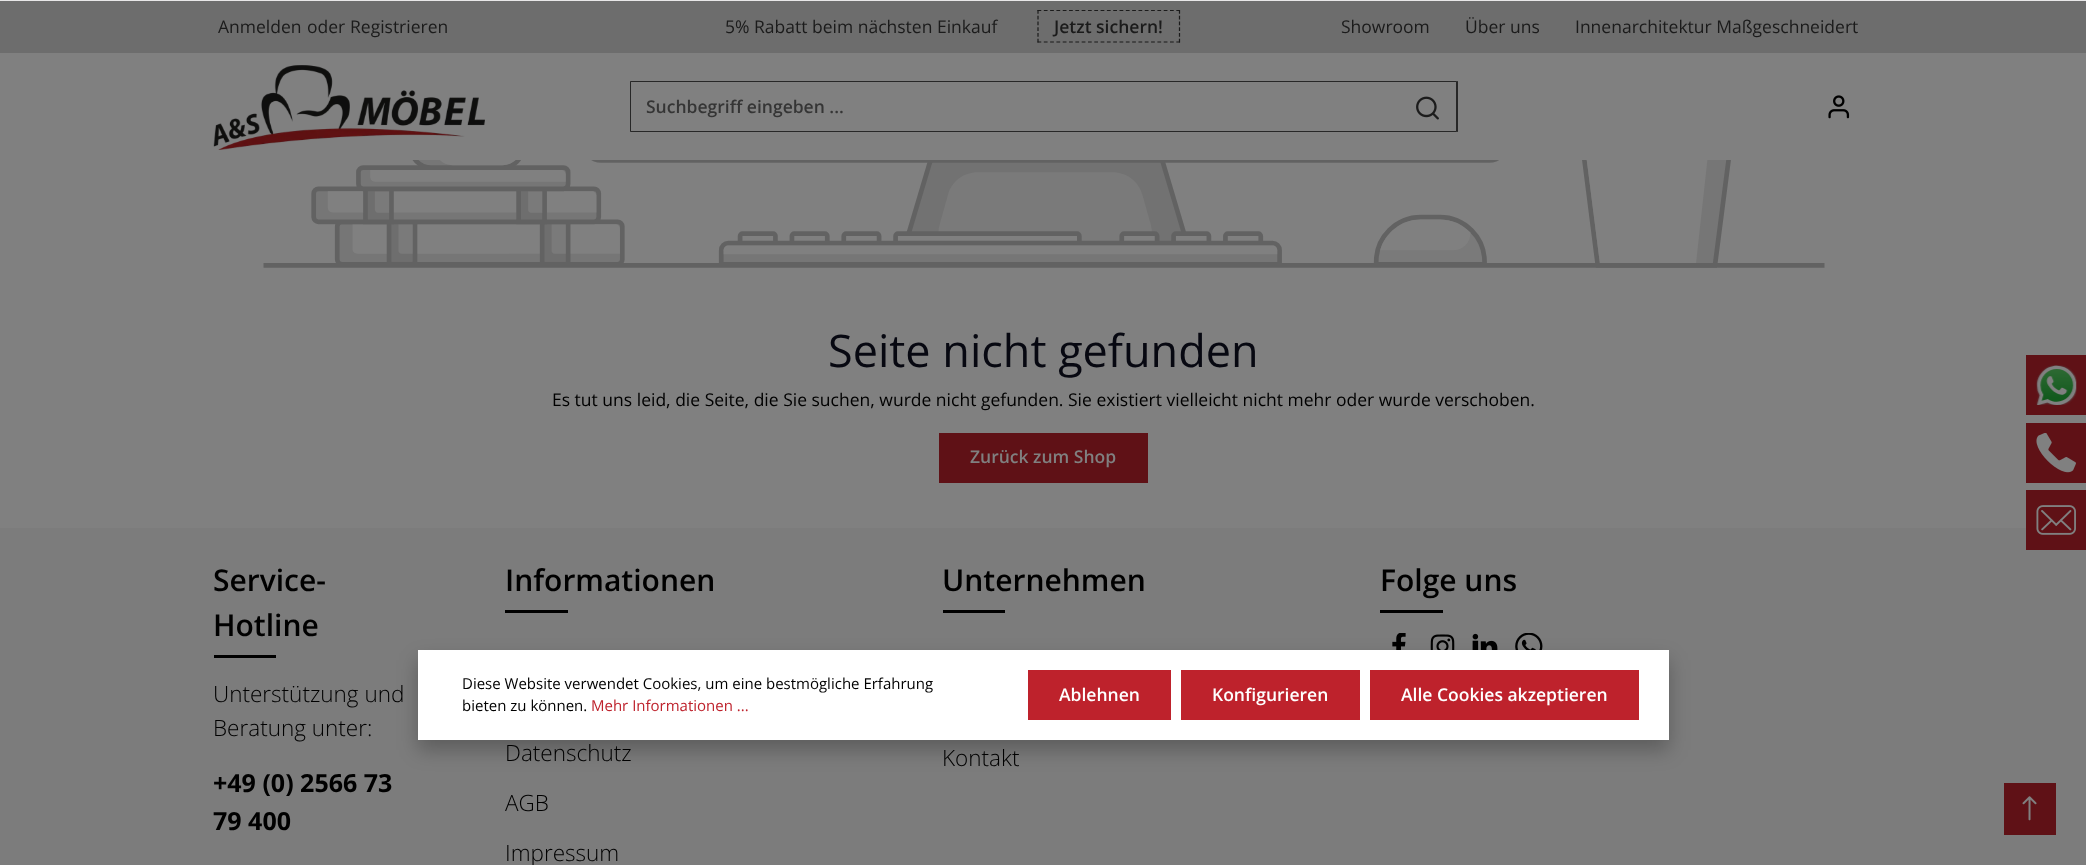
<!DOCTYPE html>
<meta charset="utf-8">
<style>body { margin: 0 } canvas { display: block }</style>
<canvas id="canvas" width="2086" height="865"></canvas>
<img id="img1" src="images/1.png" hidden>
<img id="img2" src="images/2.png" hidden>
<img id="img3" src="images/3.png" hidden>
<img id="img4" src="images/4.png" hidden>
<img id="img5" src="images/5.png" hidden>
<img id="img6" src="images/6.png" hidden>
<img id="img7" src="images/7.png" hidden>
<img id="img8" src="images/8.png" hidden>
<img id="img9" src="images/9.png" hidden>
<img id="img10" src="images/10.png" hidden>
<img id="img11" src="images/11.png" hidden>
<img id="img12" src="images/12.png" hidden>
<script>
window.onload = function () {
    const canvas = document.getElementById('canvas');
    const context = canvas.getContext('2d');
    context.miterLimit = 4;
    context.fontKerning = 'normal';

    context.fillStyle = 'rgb(128, 128, 128)';
    context.fillRect(0, 0, 2086, 865);
    context.fillStyle = 'rgb(109, 109, 109)';
    context.fillRect(0, 1, 2086, 52);
    context.beginPath();
    context.moveTo(1037.5, 10.5);
    context.lineTo(1180, 10.5);
    context.strokeStyle = 'rgb(27, 27, 27)';
    context.lineWidth = 1.2;
    context.setLineDash([3.75, 2.56]);
    context.stroke();
    context.beginPath();
    context.moveTo(1179.5, 10);
    context.lineTo(1179.5, 42.5);
    context.setLineDash([3.75, 2]);
    context.stroke();
    context.beginPath();
    context.moveTo(1037.5, 42);
    context.lineTo(1180, 42);
    context.setLineDash([3.75, 2.56]);
    context.stroke();
    context.beginPath();
    context.moveTo(1038, 10);
    context.lineTo(1038, 42.5);
    context.setLineDash([3.75, 2]);
    context.stroke();
    context.drawImage(document.getElementById('img1'), 213, 65, 272, 85);
    context.fillStyle = 'rgb(39, 39, 39)';
    context.beginPath();
    context.moveTo(630, 81);
    context.lineTo(1400, 81);
    context.lineTo(1400, 82);
    context.lineTo(631, 82);
    context.closePath();
    context.fill();
    context.beginPath();
    context.moveTo(1400, 132);
    context.lineTo(630, 132);
    context.lineTo(631, 131);
    context.lineTo(1400, 131);
    context.closePath();
    context.fill();
    context.fillStyle = 'rgba(10, 10, 10, 0.75)';
    context.beginPath();
    context.moveTo(630, 132);
    context.lineTo(630, 81);
    context.lineTo(631, 82);
    context.lineTo(631, 131);
    context.closePath();
    context.fill();
    context.fillStyle = 'rgb(128, 128, 128)';
    context.fillRect(1399, 81, 1, 51);
    context.fillStyle = 'rgb(39, 39, 39)';
    context.beginPath();
    context.moveTo(1399, 81);
    context.lineTo(1458, 81);
    context.lineTo(1456, 82);
    context.lineTo(1399, 82);
    context.closePath();
    context.fill();
    context.fillStyle = 'rgba(10, 10, 10, 0.75)';
    context.beginPath();
    context.moveTo(1458, 81);
    context.lineTo(1458, 132);
    context.lineTo(1456, 131);
    context.lineTo(1456, 82);
    context.closePath();
    context.fill();
    context.beginPath();
    context.moveTo(1458, 132);
    context.lineTo(1399, 132);
    context.lineTo(1399, 131);
    context.lineTo(1456, 131);
    context.closePath();
    context.fill();
    context.drawImage(document.getElementById('img2'), 1416, 96, 23, 24);
    context.drawImage(document.getElementById('img3'), 1828, 95, 22, 24);
    context.drawImage(document.getElementById('img4'), 263, 160, 1562, 108);
    context.fillStyle = 'rgb(95, 17, 22)';
    context.fillRect(939, 433, 209, 50);
    context.fillStyle = 'rgb(124, 124, 124)';
    context.fillRect(0, 528, 2086, 337);
    context.fillStyle = 'rgb(0, 0, 0)';
    context.fillRect(214, 655, 62, 3);
    context.fillRect(505, 610, 63, 3);
    context.fillRect(943, 610, 62, 3);
    context.fillRect(1380, 610, 63, 3);
    context.drawImage(document.getElementById('img5'), 1392, 633, 14, 17);
    context.drawImage(document.getElementById('img6'), 1430, 634, 25, 16);
    context.drawImage(document.getElementById('img7'), 1472, 633, 26, 17);
    context.drawImage(document.getElementById('img8'), 1515, 633, 28, 17);
    context.fillStyle = 'rgb(95, 17, 22)';
    context.fillRect(2026, 355, 60, 60);
    context.drawImage(document.getElementById('img9'), 2036, 365, 41, 40);
    context.fillRect(2026, 423, 60, 60);
    context.drawImage(document.getElementById('img10'), 2036, 433, 40, 40);
    context.fillRect(2026, 490, 60, 60);
    context.drawImage(document.getElementById('img11'), 2036, 505, 40, 30);
    context.fillStyle = 'rgb(232, 231, 232)';
    context.fillRect(0, 0, 2086, 1);
    context.fillStyle = 'rgba(0, 0, 0, 0.25)';
    context.filter = 'blur(10px)';
    context.beginPath();
    context.rect(418, 660, 1251, 90);
    context.fill();
    context.filter = 'none';
    context.fillStyle = 'rgb(255, 255, 255)';
    context.fillRect(418, 650, 1251, 90);
    context.fillStyle = 'rgb(190, 34, 44)';
    context.fillRect(1028, 670, 143, 50);
    context.fillRect(1181, 670, 179, 50);
    context.fillRect(1370, 670, 269, 50);
    context.fillStyle = 'rgb(95, 17, 22)';
    context.fillRect(2004, 783, 52, 52);
    context.drawImage(document.getElementById('img12'), 2022, 796, 15, 25);
    context.font = '17.5px Open Sans';
    context.fillStyle = 'rgb(27, 27, 27)';
    context.fillText('Anmelden', 218, 33);
    context.fillText('oder', 307, 33);
    context.fillText('Registrieren', 350, 33);
    context.fillText('5% Rabatt beim nächsten Einkauf', 725, 33);
    context.font = '600 17.5px Open Sans';
    context.fillText('Jetzt sichern!', 1054, 33);
    context.font = '17.5px Open Sans';
    context.fillText('Showroom', 1341, 33);
    context.fillText('Über uns', 1465, 33);
    context.fillText('Innenarchitektur Maßgeschneidert', 1575, 33);
    context.font = '600 17.5px Open Sans';
    context.fillStyle = 'rgb(53, 53, 53)';
    context.fillText('Suchbegriff eingeben ...', 646, 113);
    context.font = '45px Open Sans';
    context.fillStyle = 'rgb(7, 8, 17)';
    context.fillText('Seite nicht gefunden', 828, 367);
    context.font = '17.5px Open Sans';
    context.fillStyle = 'rgb(0, 0, 0)';
    context.fillText('Es tut uns leid, die Seite, die Sie suchen, wurde nicht gefunden. Sie existiert vielleicht nicht mehr oder wurde verschoben.', 552, 406);
    context.font = '600 17.5px Open Sans';
    context.fillStyle = 'rgb(128, 128, 128)';
    context.fillText('Zurück zum Shop', 970, 463);
    context.font = '600 30px Open Sans';
    context.fillStyle = 'rgb(0, 0, 0)';
    context.fillText('Service-', 213, 591);
    context.fillText('Hotline', 213, 636);
    context.font = '300 22.5px Open Sans';
    context.fillText('Unterstützung und', 213, 702);
    context.fillText('Beratung unter:', 213, 736);
    context.font = 'bold 25px Open Sans';
    context.fillText('+49 (0) 2566 73', 213, 792);
    context.fillText('79 400', 213, 830);
    context.font = '600 30px Open Sans';
    context.fillText('Informationen', 505, 591);
    context.font = '300 22.5px Open Sans';
    context.fillText('Datenschutz', 505, 761);
    context.fillText('AGB', 505, 811);
    context.fillText('Impressum', 505, 861);
    context.font = '600 30px Open Sans';
    context.fillText('Unternehmen', 942, 591);
    context.font = '300 22.5px Open Sans';
    context.fillText('Kontakt', 942, 766);
    context.font = '600 30px Open Sans';
    context.fillText('Folge uns', 1380, 591);
    context.font = '15px Open Sans';
    context.fillText('Diese Website verwendet Cookies, um eine bestmögliche Erfahrung', 462, 689);
    context.fillText('bieten zu können.', 462, 711);
    context.fillStyle = 'rgb(190, 34, 44)';
    context.fillText('Mehr Informationen ...', 591, 711);
    context.font = '600 17.5px Open Sans';
    context.fillStyle = 'rgb(255, 255, 255)';
    context.fillText('Ablehnen', 1059, 701);
    context.fillText('Konfigurieren', 1212, 701);
    context.fillText('Alle Cookies akzeptieren', 1401, 701);
};
</script>
